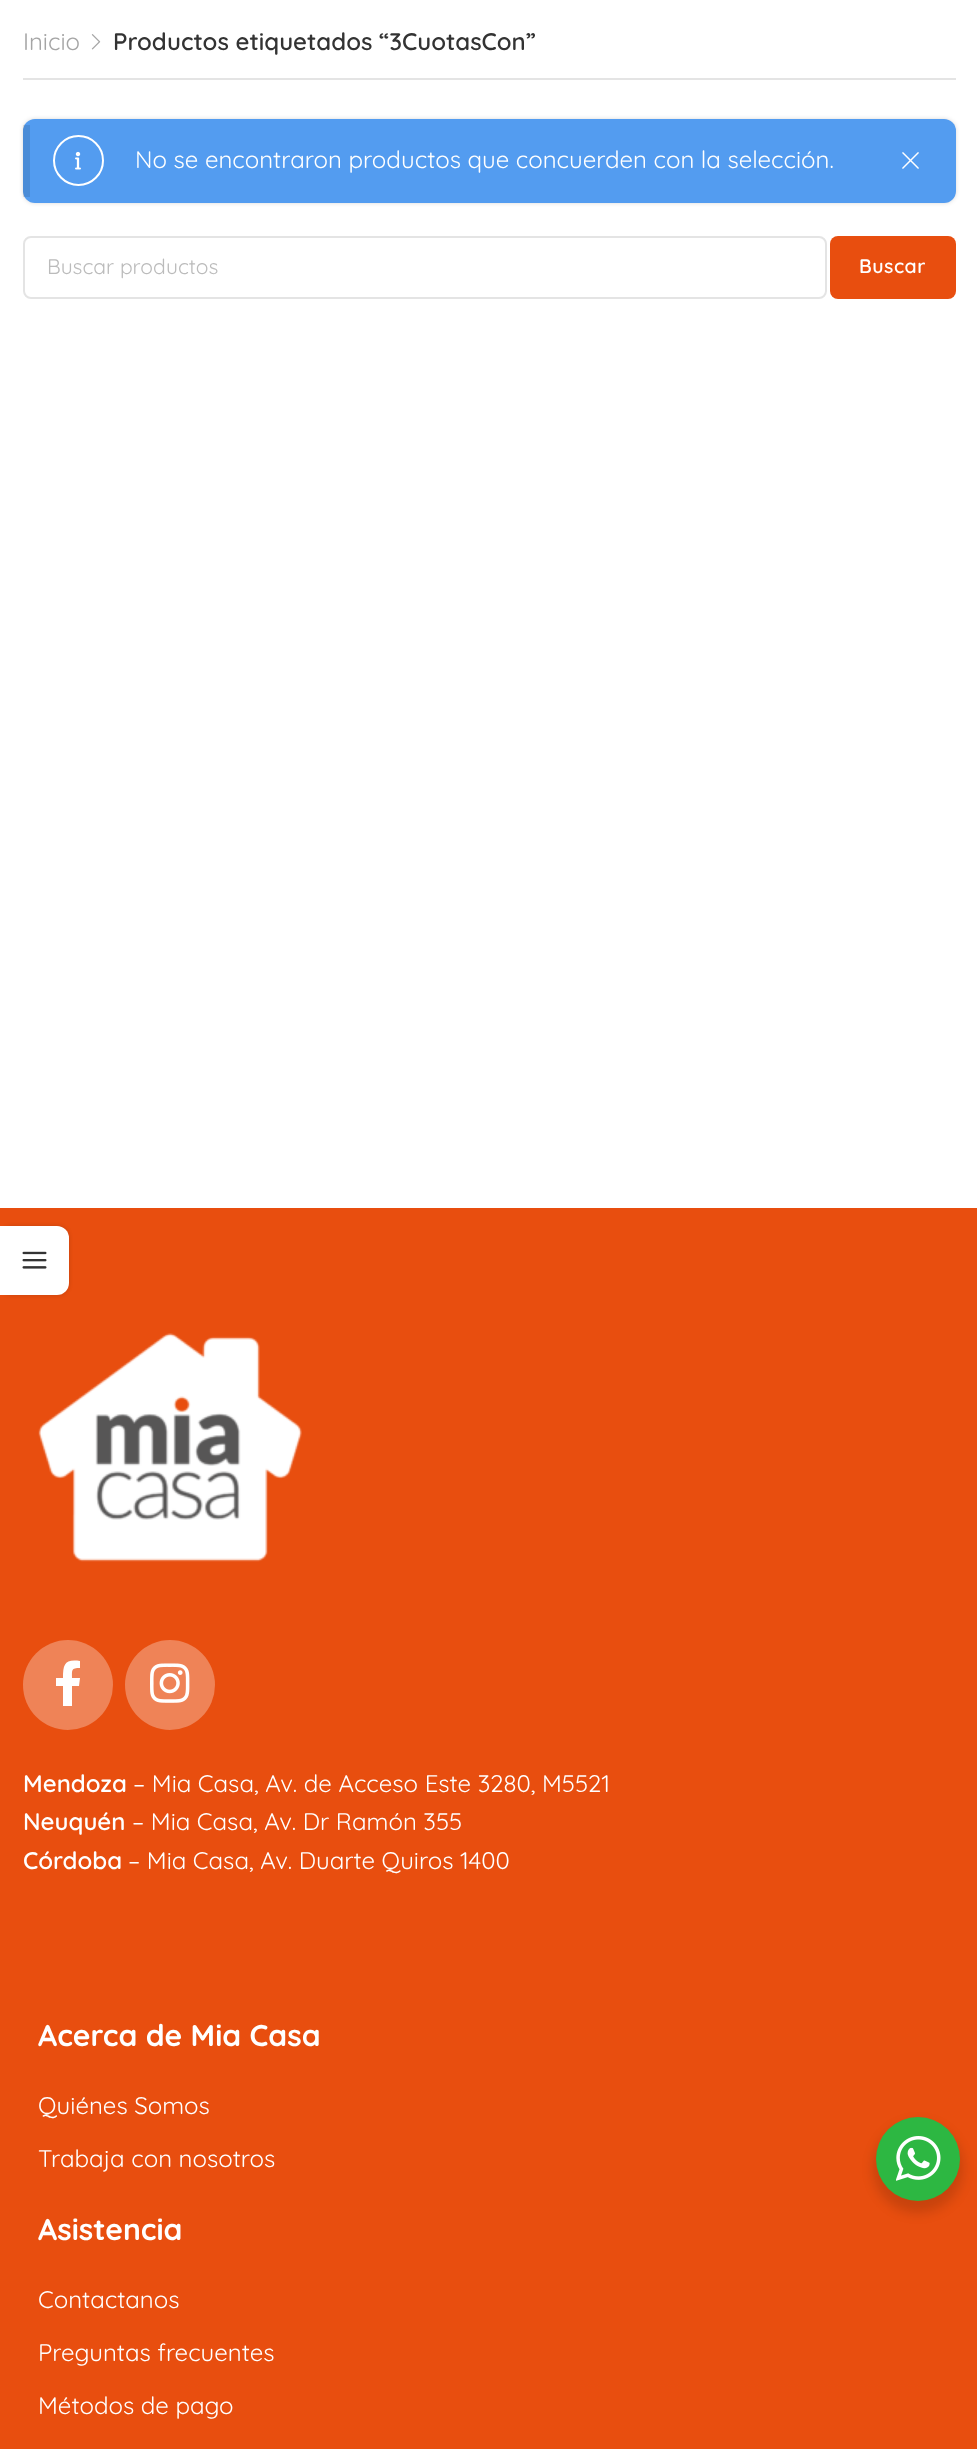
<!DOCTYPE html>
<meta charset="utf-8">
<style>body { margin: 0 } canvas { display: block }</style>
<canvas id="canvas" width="977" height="2449"></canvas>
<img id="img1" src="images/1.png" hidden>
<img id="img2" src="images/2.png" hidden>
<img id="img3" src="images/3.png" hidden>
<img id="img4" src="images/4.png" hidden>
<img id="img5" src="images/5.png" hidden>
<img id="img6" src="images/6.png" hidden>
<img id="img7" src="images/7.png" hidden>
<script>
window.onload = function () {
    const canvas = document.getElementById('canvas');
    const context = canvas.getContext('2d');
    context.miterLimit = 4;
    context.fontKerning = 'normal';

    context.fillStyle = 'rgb(255, 255, 255)';
    context.fillRect(0, 0, 977, 2449);
    context.fillStyle = 'rgb(228, 228, 228)';
    context.fillRect(23, 78, 933, 2);
    context.drawImage(document.getElementById('img1'), 91, 34, 10, 16);
    context.fillStyle = 'rgba(0, 0, 0, 0.15)';
    context.filter = 'blur(2px)';
    context.beginPath();
    context.roundRect(23, 119, 933, 84, 12);
    context.fill();
    context.filter = 'none';
    context.fillStyle = 'rgb(83, 156, 240)';
    context.beginPath();
    context.roundRect(23, 119, 933, 84, 12);
    context.fill();
    context.fillStyle = 'rgba(0, 0, 0, 0.1)';
    context.fillRect(23, 125, 7, 72);
    context.beginPath();
    context.arc(78.5, 160.5, 24.5, 0, 2 * Math.PI);
    context.strokeStyle = 'rgb(255, 255, 255)';
    context.lineWidth = 2;
    context.stroke();
    context.drawImage(document.getElementById('img2'), 75, 151, 6, 19);
    context.drawImage(document.getElementById('img3'), 902, 152, 17, 17);
    context.beginPath();
    context.roundRect(24, 237, 802, 61, 7);
    context.strokeStyle = 'rgb(228, 228, 228)';
    context.stroke();
    context.fillStyle = 'rgb(232, 78, 15)';
    context.beginPath();
    context.roundRect(830, 236, 126, 63, 8);
    context.fill();
    context.fillRect(0, 1208, 977, 1241);
    context.fillStyle = 'rgba(0, 0, 0, 0.15)';
    context.filter = 'blur(2px)';
    context.beginPath();
    context.roundRect(0, 1226, 69, 69, 12);
    context.fill();
    context.filter = 'none';
    context.fillStyle = 'rgb(255, 255, 255)';
    context.beginPath();
    context.roundRect(0, 1226, 69, 69, [0, 12, 12, 0]);
    context.fill();
    context.drawImage(document.getElementById('img4'), 22, 1251, 25, 18);
    context.drawImage(document.getElementById('img5'), 38, 1333, 264, 229);
    context.fillStyle = 'rgb(239, 131, 87)';
    context.beginPath();
    context.arc(68, 1685, 45, 0, 2 * Math.PI);
    context.fill();
    context.fillStyle = 'rgb(255, 255, 255)';
    context.beginPath();
    context.moveTo(79, 1686);
    context.lineTo(80, 1678);
    context.lineTo(72, 1678);
    context.bezierCurveTo(72, 1670, 71, 1668, 80, 1668);
    context.lineTo(80, 1661);
    context.bezierCurveTo(65, 1659, 63, 1664, 63, 1678);
    context.lineTo(56, 1678);
    context.lineTo(56, 1686);
    context.lineTo(63, 1686);
    context.lineTo(63, 1706);
    context.lineTo(72, 1706);
    context.lineTo(72, 1686);
    context.closePath();
    context.fill();
    context.fillStyle = 'rgb(239, 131, 87)';
    context.beginPath();
    context.arc(170, 1685, 45, 0, 2 * Math.PI);
    context.fill();
    context.drawImage(document.getElementById('img6'), 150, 1663, 40, 40);
    context.fillStyle = 'rgba(0, 0, 0, 0.14)';
    context.filter = 'blur(6px)';
    context.beginPath();
    context.roundRect(873, 2123, 90, 90, 45);
    context.fill();
    context.filter = 'none';
    context.fillStyle = 'rgb(45, 183, 66)';
    context.beginPath();
    context.arc(918, 2159, 42, 0, 2 * Math.PI);
    context.fill();
    context.drawImage(document.getElementById('img7'), 896, 2136, 45, 45);
    context.font = '24px Quicksand';
    context.fillStyle = 'rgb(165, 165, 165)';
    context.fillText('Inicio', 23, 50);
    context.font = '600 24px Quicksand';
    context.fillStyle = 'rgb(51, 51, 51)';
    context.fillText('Productos etiquetados “3CuotasCon”', 113, 50);
    context.font = '24px Quicksand';
    context.fillStyle = 'rgb(255, 255, 255)';
    context.fillText('No se encontraron productos que concuerden con la selección.', 135, 168);
    context.font = '21px Quicksand';
    context.fillStyle = 'rgb(187, 187, 187)';
    context.fillText('Buscar productos', 47, 274);
    context.letterSpacing = '0.5px';
    context.font = '600 19.5px Quicksand';
    context.fillStyle = 'rgb(255, 255, 255)';
    context.fillText('Buscar', 859, 273);
    context.letterSpacing = '0px';
    context.font = '600 24px Quicksand';
    context.fillText('Mendoza', 23, 1792);
    context.font = '24px Quicksand';
    context.fillText('– Mia Casa, Av. de Acceso Este 3280, M5521', 133, 1792);
    context.font = '600 24px Quicksand';
    context.fillText('Neuquén', 23, 1830);
    context.font = '24px Quicksand';
    context.fillText('– Mia Casa, Av. Dr Ramón 355', 132, 1830);
    context.font = '600 24px Quicksand';
    context.fillText('Córdoba', 23, 1869);
    context.font = '24px Quicksand';
    context.fillText('– Mia Casa, Av. Duarte Quiros 1400', 128, 1869);
    context.font = 'bold 30px Quicksand';
    context.fillText('Acerca de Mia Casa', 38, 2046);
    context.font = '24px Quicksand';
    context.fillText('Quiénes Somos', 38, 2114);
    context.fillText('Trabaja con nosotros', 38, 2167);
    context.font = 'bold 30px Quicksand';
    context.fillText('Asistencia', 38, 2240);
    context.font = '24px Quicksand';
    context.fillText('Contactanos', 38, 2308);
    context.fillText('Preguntas frecuentes', 38, 2361);
    context.fillText('Métodos de pago', 38, 2414);
};
</script>
